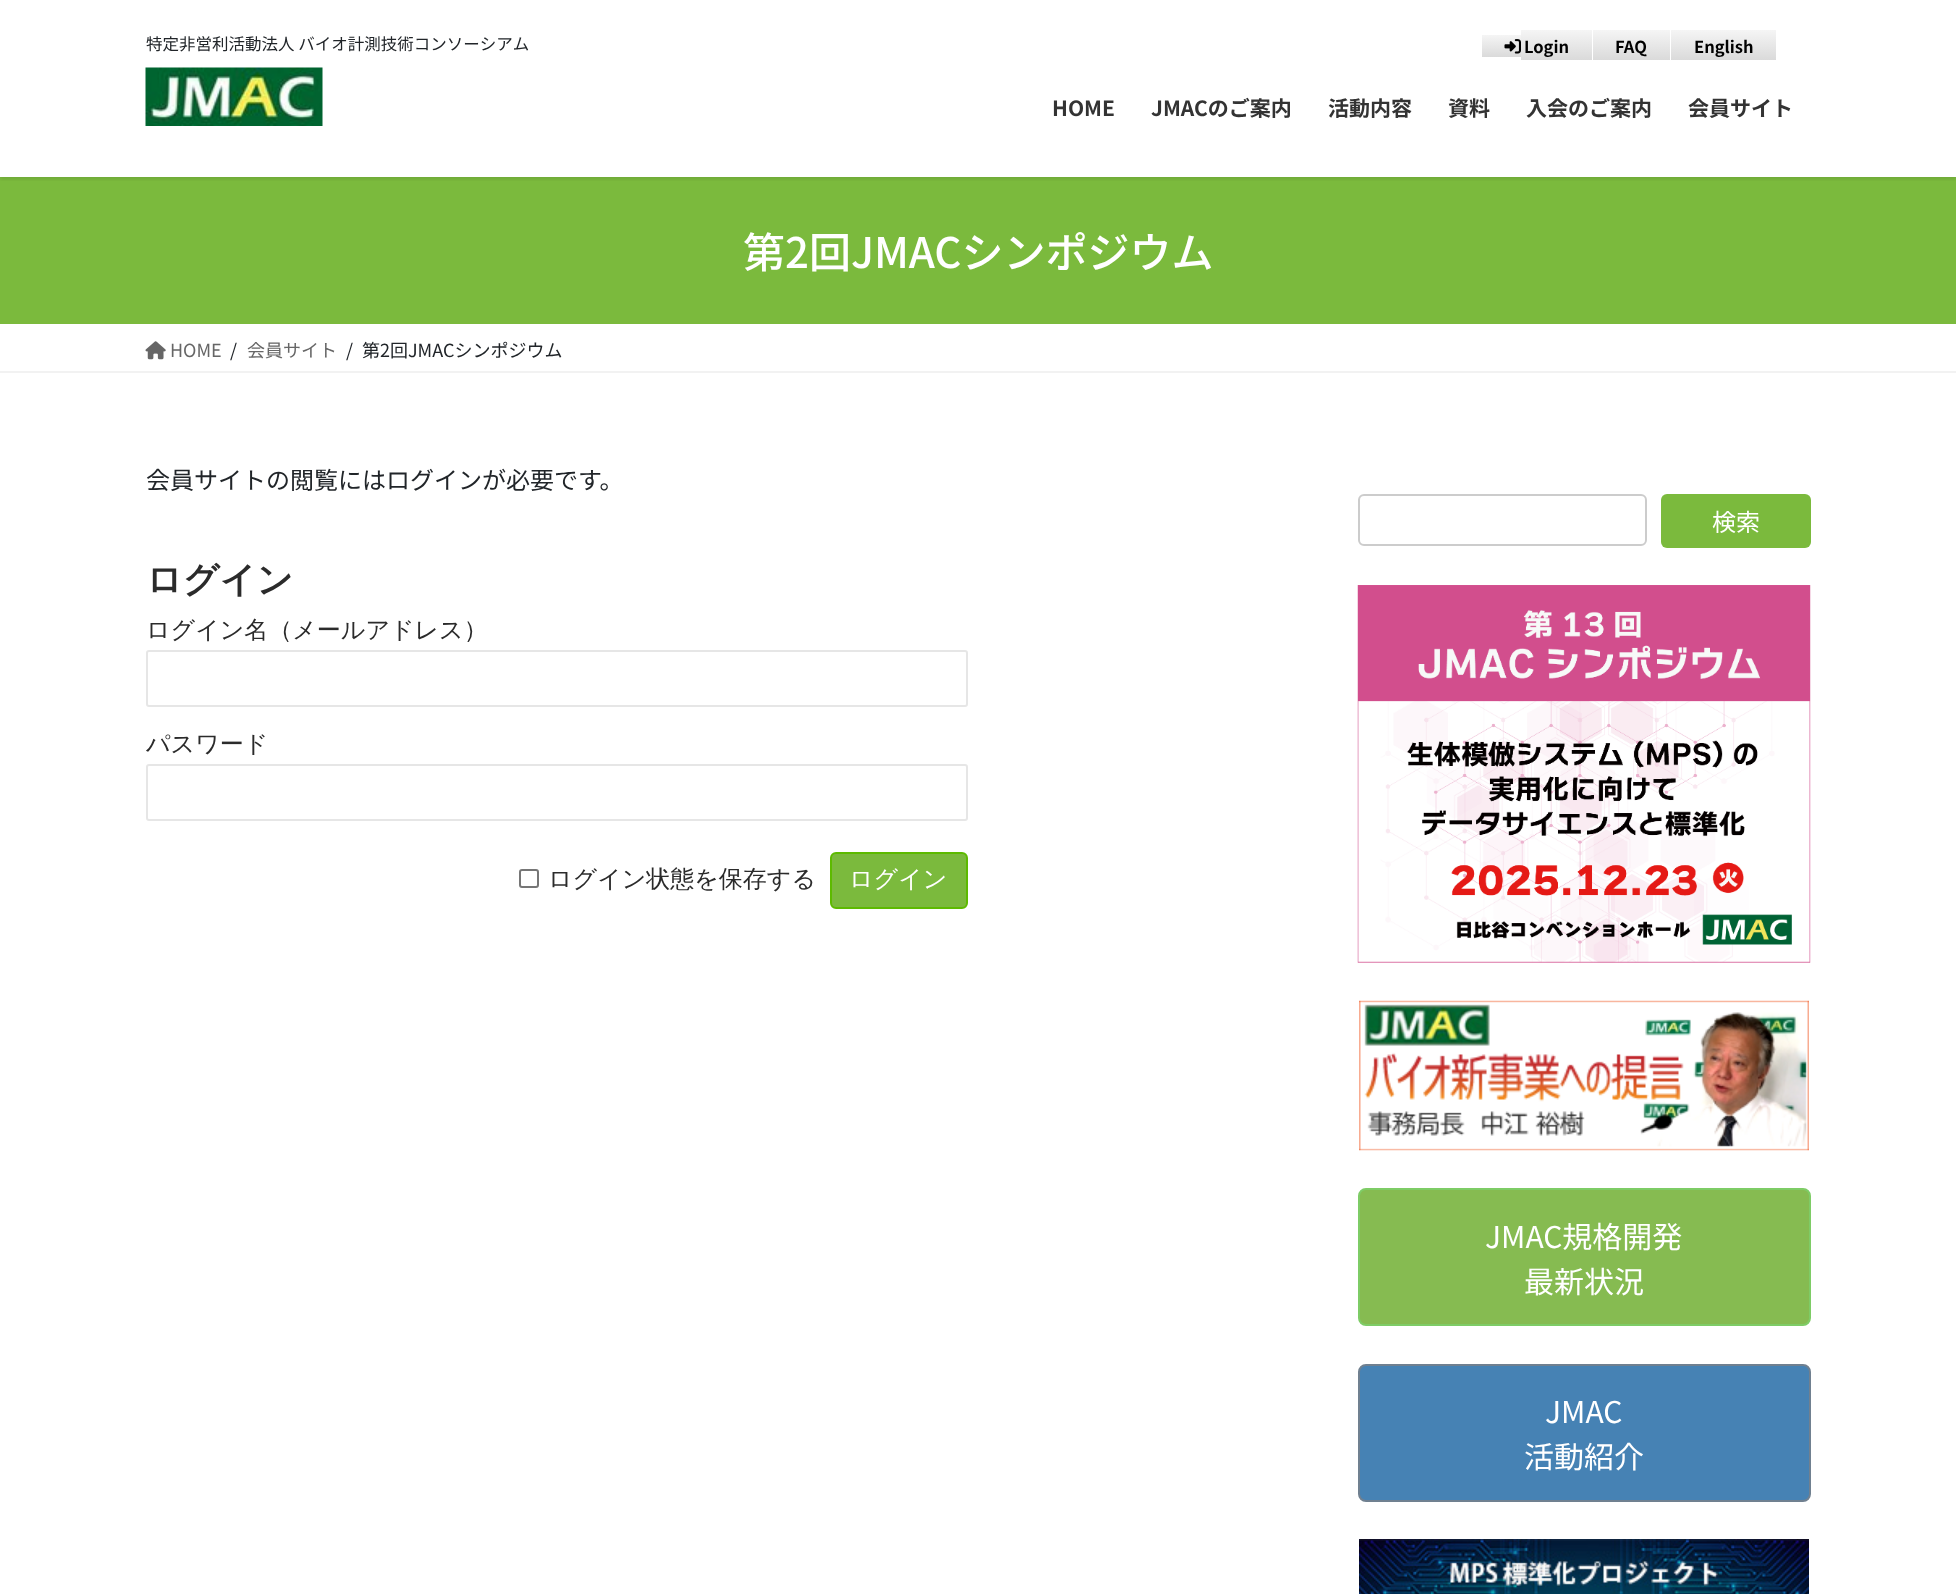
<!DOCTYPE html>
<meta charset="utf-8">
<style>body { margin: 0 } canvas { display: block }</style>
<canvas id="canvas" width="1956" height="1594"></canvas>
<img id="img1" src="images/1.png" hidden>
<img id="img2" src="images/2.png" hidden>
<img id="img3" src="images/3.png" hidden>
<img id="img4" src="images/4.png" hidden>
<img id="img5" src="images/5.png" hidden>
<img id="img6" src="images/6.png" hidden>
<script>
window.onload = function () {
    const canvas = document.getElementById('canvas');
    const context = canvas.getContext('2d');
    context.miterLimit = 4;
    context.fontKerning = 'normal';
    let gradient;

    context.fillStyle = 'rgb(255, 255, 255)';
    context.fillRect(0, 0, 1956, 1594);
    context.fillStyle = 'rgb(123, 186, 61)';
    context.fillRect(0, 177, 1956, 147);
    context.save();
    context.beginPath();
    context.rect(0, 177, 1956, 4);
    context.clip();
    context.fillStyle = 'rgba(0, 0, 0, 0.1)';
    context.filter = 'blur(2px)';
    context.beginPath();
    context.rect(0, 2, 1956, 177);
    context.fill();
    context.filter = 'none';
    context.restore();
    gradient = context.createLinearGradient(1502, 35, 1502, 57);
    gradient.addColorStop(0, 'rgb(245, 245, 245)');
    gradient.addColorStop(1, 'rgb(218, 218, 218)');
    context.fillStyle = gradient;
    context.fillRect(1482, 35, 39, 22);
    gradient = context.createLinearGradient(1556, 30, 1556, 60);
    gradient.addColorStop(0, 'rgb(245, 245, 245)');
    gradient.addColorStop(1, 'rgb(218, 218, 218)');
    context.fillStyle = gradient;
    context.fillRect(1521, 30, 71, 30);
    context.drawImage(document.getElementById('img1'), 1504, 39, 17, 15);
    gradient = context.createLinearGradient(1631, 30, 1631, 60);
    gradient.addColorStop(0, 'rgb(245, 245, 245)');
    gradient.addColorStop(1, 'rgb(218, 218, 218)');
    context.fillStyle = gradient;
    context.fillRect(1593, 30, 77, 30);
    gradient = context.createLinearGradient(1724, 30, 1724, 60);
    gradient.addColorStop(0, 'rgb(245, 245, 245)');
    gradient.addColorStop(1, 'rgb(218, 218, 218)');
    context.fillStyle = gradient;
    context.fillRect(1671, 30, 105, 30);
    context.drawImage(document.getElementById('img2'), 145, 67, 178, 59);
    context.fillStyle = 'rgb(242, 242, 242)';
    context.fillRect(0, 371, 1956, 2);
    context.drawImage(document.getElementById('img3'), 145, 341, 21, 19);
    context.beginPath();
    context.roundRect(147, 651, 820, 55, 2);
    context.strokeStyle = 'rgb(230, 230, 230)';
    context.lineWidth = 2;
    context.stroke();
    context.beginPath();
    context.roundRect(147, 765, 820, 55, 2);
    context.stroke();
    context.beginPath();
    context.roundRect(520, 870, 18, 17, 2);
    context.strokeStyle = 'rgb(118, 118, 118)';
    context.stroke();
    context.fillStyle = 'rgb(123, 186, 61)';
    context.beginPath();
    context.roundRect(831, 853, 136, 55, 5);
    context.fill();
    context.strokeStyle = 'rgb(93, 186, 0)';
    context.stroke();
    context.beginPath();
    context.roundRect(1359, 495, 287, 50, 5);
    context.strokeStyle = 'rgb(204, 204, 204)';
    context.stroke();
    context.beginPath();
    context.roundRect(1661, 494, 150, 54, 6);
    context.fill();
    context.drawImage(document.getElementById('img4'), 1357, 585, 454, 378);
    context.drawImage(document.getElementById('img5'), 1359, 1000, 450, 151);
    context.fillStyle = 'rgb(134, 187, 81)';
    context.beginPath();
    context.roundRect(1359, 1189, 451, 136, 7);
    context.fill();
    context.strokeStyle = 'rgb(126, 204, 102)';
    context.stroke();
    context.fillStyle = 'rgb(70, 130, 180)';
    context.beginPath();
    context.roundRect(1359, 1365, 451, 136, 7);
    context.fill();
    context.strokeStyle = 'rgb(112, 128, 144)';
    context.stroke();
    context.drawImage(document.getElementById('img6'), 1359, 1539, 450, 55);
    context.font = '16.5px Noto Sans JP';
    context.fillStyle = 'rgb(33, 37, 41)';
    context.fillText('特定非営利活動法人 バイオ計測技術コンソーシアム', 146, 50);
    context.font = 'bold 16.5px Noto Sans JP';
    context.fillStyle = 'rgb(0, 0, 0)';
    context.fillText('Login', 1524, 53);
    context.fillText('FAQ', 1615, 53);
    context.fillText('English', 1694, 53);
    context.font = 'bold 21px Noto Sans JP';
    context.fillStyle = 'rgb(51, 51, 51)';
    context.fillText('HOME', 1052, 116);
    context.fillText('JMACのご案内', 1151, 116);
    context.fillText('活動内容', 1328, 116);
    context.fillText('資料', 1448, 116);
    context.fillText('入会のご案内', 1526, 116);
    context.fillText('会員サイト', 1688, 116);
    context.font = '500 42px Noto Sans JP';
    context.fillStyle = 'rgb(255, 255, 255)';
    context.fillText('第2回JMACシンポジウム', 743, 268);
    context.font = '18px Noto Sans JP';
    context.fillStyle = 'rgb(102, 102, 102)';
    context.fillText('HOME', 170, 357);
    context.fillStyle = 'rgb(33, 37, 41)';
    context.fillText('/', 230, 357);
    context.fillStyle = 'rgb(102, 102, 102)';
    context.fillText('会員サイト', 247, 357);
    context.fillStyle = 'rgb(33, 37, 41)';
    context.fillText('/', 346, 357);
    context.fillText('第2回JMACシンポジウム', 362, 357);
    context.font = '24px Noto Sans JP';
    context.fillText('会員サイトの閲覧にはログインが必要です。', 146, 489);
    context.font = 'bold 36px WenQuanYi Zen Hei';
    context.fillStyle = 'rgb(43, 43, 43)';
    context.fillText('ログイン', 146, 592);
    context.font = '500 24px WenQuanYi Zen Hei';
    context.fillText('ログイン名（メールアドレス）', 146, 638);
    context.fillText('パスワード', 146, 752);
    context.fillText('ログイン状態を保存する', 548, 887);
    context.fillStyle = 'rgb(255, 255, 255)';
    context.fillText('ログイン', 849, 887);
    context.font = '24px Noto Sans JP';
    context.fillText('検索', 1712, 531);
    context.font = '30px Noto Sans JP';
    context.fillText('JMAC規格開発', 1485, 1248);
    context.fillText('最新状況', 1524, 1293);
    context.fillText('JMAC', 1545, 1423);
    context.fillText('活動紹介', 1524, 1468);
};
</script>
